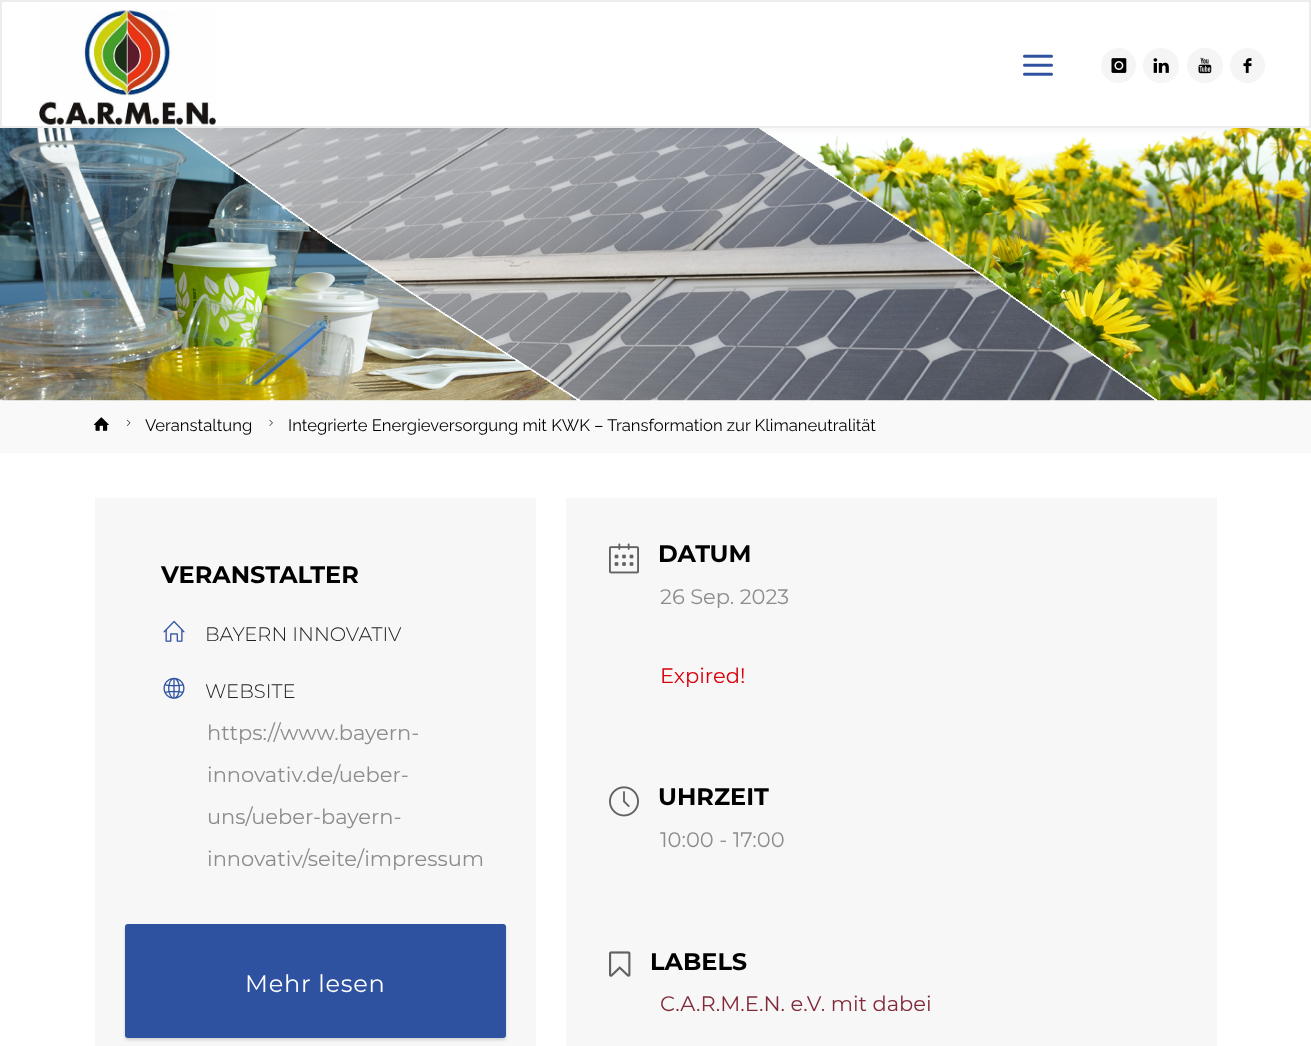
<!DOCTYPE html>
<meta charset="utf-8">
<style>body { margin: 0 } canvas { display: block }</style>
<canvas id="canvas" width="1311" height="1046"></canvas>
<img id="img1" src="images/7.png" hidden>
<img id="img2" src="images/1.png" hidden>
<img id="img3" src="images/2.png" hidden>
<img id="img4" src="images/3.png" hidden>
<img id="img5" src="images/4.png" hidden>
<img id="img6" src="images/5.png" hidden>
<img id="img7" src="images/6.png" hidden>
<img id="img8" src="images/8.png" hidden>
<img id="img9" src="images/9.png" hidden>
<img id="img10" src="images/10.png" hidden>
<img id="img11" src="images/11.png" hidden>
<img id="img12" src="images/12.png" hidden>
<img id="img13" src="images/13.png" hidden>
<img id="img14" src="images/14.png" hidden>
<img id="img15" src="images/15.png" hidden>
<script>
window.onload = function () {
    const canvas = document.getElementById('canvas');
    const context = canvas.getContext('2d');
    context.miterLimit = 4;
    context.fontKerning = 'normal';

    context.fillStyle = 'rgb(255, 255, 255)';
    context.fillRect(0, 0, 1311, 1046);
    context.drawImage(document.getElementById('img1'), 0, 128, 1311, 273);
    context.fillStyle = 'rgba(0, 0, 0, 0.05)';
    context.filter = 'blur(4.5px)';
    context.beginPath();
    context.rect(-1, -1, 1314, 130);
    context.fill();
    context.filter = 'none';
    context.fillStyle = 'rgb(255, 255, 255)';
    context.beginPath();
    context.rect(1, 1, 1309, 126);
    context.fill();
    context.strokeStyle = 'rgb(237, 237, 237)';
    context.lineWidth = 2;
    context.stroke();
    context.drawImage(document.getElementById('img2'), 39, 10, 177, 115);
    context.drawImage(document.getElementById('img3'), 1023, 54, 30, 22);
    context.fillStyle = 'rgb(245, 245, 245)';
    context.beginPath();
    context.arc(1118.5, 65.5, 17.5, 0, 2 * Math.PI);
    context.fill();
    context.drawImage(document.getElementById('img4'), 1111, 58, 16, 15);
    context.beginPath();
    context.roundRect(1143, 48, 36, 35, 17.5);
    context.fill();
    context.drawImage(document.getElementById('img5'), 1153, 58, 16, 15);
    context.beginPath();
    context.roundRect(1187, 48, 36, 35, 17.5);
    context.fill();
    context.drawImage(document.getElementById('img6'), 1198, 57, 14, 17);
    context.beginPath();
    context.arc(1247.5, 65.5, 17.5, 0, 2 * Math.PI);
    context.fill();
    context.drawImage(document.getElementById('img7'), 1243, 58, 9, 15);
    context.fillStyle = 'rgb(249, 249, 249)';
    context.fillRect(0, 401, 1311, 52);
    context.drawImage(document.getElementById('img8'), 93, 417, 16, 14);
    context.drawImage(document.getElementById('img9'), 126, 419, 5, 7);
    context.drawImage(document.getElementById('img10'), 269, 419, 4, 7);
    context.fillStyle = 'rgb(247, 247, 247)';
    context.fillRect(95, 498, 441, 548);
    context.drawImage(document.getElementById('img11'), 163, 620, 22, 22);
    context.drawImage(document.getElementById('img12'), 163, 677, 22, 22);
    context.fillStyle = 'rgba(0, 0, 0, 0.15)';
    context.filter = 'blur(1.5px)';
    context.beginPath();
    context.roundRect(125, 926, 381, 114, 3);
    context.fill();
    context.filter = 'none';
    context.fillStyle = 'rgb(47, 82, 160)';
    context.beginPath();
    context.roundRect(125, 924, 381, 114, 3);
    context.fill();
    context.fillStyle = 'rgb(247, 247, 247)';
    context.fillRect(566, 498, 651, 548);
    context.drawImage(document.getElementById('img13'), 609, 543, 30, 31);
    context.drawImage(document.getElementById('img14'), 609, 786, 30, 31);
    context.drawImage(document.getElementById('img15'), 609, 951, 22, 26);
    context.font = '16.65px Raleway';
    context.fillStyle = 'rgb(0, 0, 0)';
    context.fillText('Veranstaltung', 145, 431);
    context.fillText('Integrierte Energieversorgung mit KWK – Transformation zur Klimaneutralität', 288, 431);
    context.font = 'bold 24px Montserrat';
    context.fillText('VERANSTALTER', 161, 583);
    context.font = '300 19.5px Montserrat';
    context.fillStyle = 'rgb(34, 34, 34)';
    context.fillText('BAYERN INNOVATIV', 205, 641);
    context.fillText('WEBSITE', 205, 698);
    context.font = '21px Montserrat';
    context.fillStyle = 'rgb(141, 141, 141)';
    context.fillText('https://www.bayern-', 207, 740);
    context.fillText('innovativ.de/ueber-', 207, 782);
    context.fillText('uns/ueber-bayern-', 207, 824);
    context.fillText('innovativ/seite/impressum', 207, 866);
    context.letterSpacing = '0.75px';
    context.font = '24px Montserrat';
    context.fillStyle = 'rgb(255, 255, 255)';
    context.fillText('Mehr lesen', 245, 992);
    context.letterSpacing = '0px';
    context.font = 'bold 24px Montserrat';
    context.fillStyle = 'rgb(0, 0, 0)';
    context.fillText('DATUM', 658, 562);
    context.font = '21px Montserrat';
    context.fillStyle = 'rgb(141, 141, 141)';
    context.fillText('26 Sep. 2023', 660, 604);
    context.fillStyle = 'rgb(216, 0, 12)';
    context.fillText('Expired!', 660, 683);
    context.font = 'bold 24px Montserrat';
    context.fillStyle = 'rgb(0, 0, 0)';
    context.fillText('UHRZEIT', 658, 805);
    context.font = '21px Montserrat';
    context.fillStyle = 'rgb(141, 141, 141)';
    context.fillText('10:00 - 17:00', 660, 847);
    context.font = 'bold 24px Montserrat';
    context.fillStyle = 'rgb(0, 0, 0)';
    context.fillText('LABELS', 650, 970);
    context.font = '21px Montserrat';
    context.fillStyle = 'rgb(130, 42, 58)';
    context.fillText('C.A.R.M.E.N. e.V. mit dabei', 660, 1011);
};
</script>
